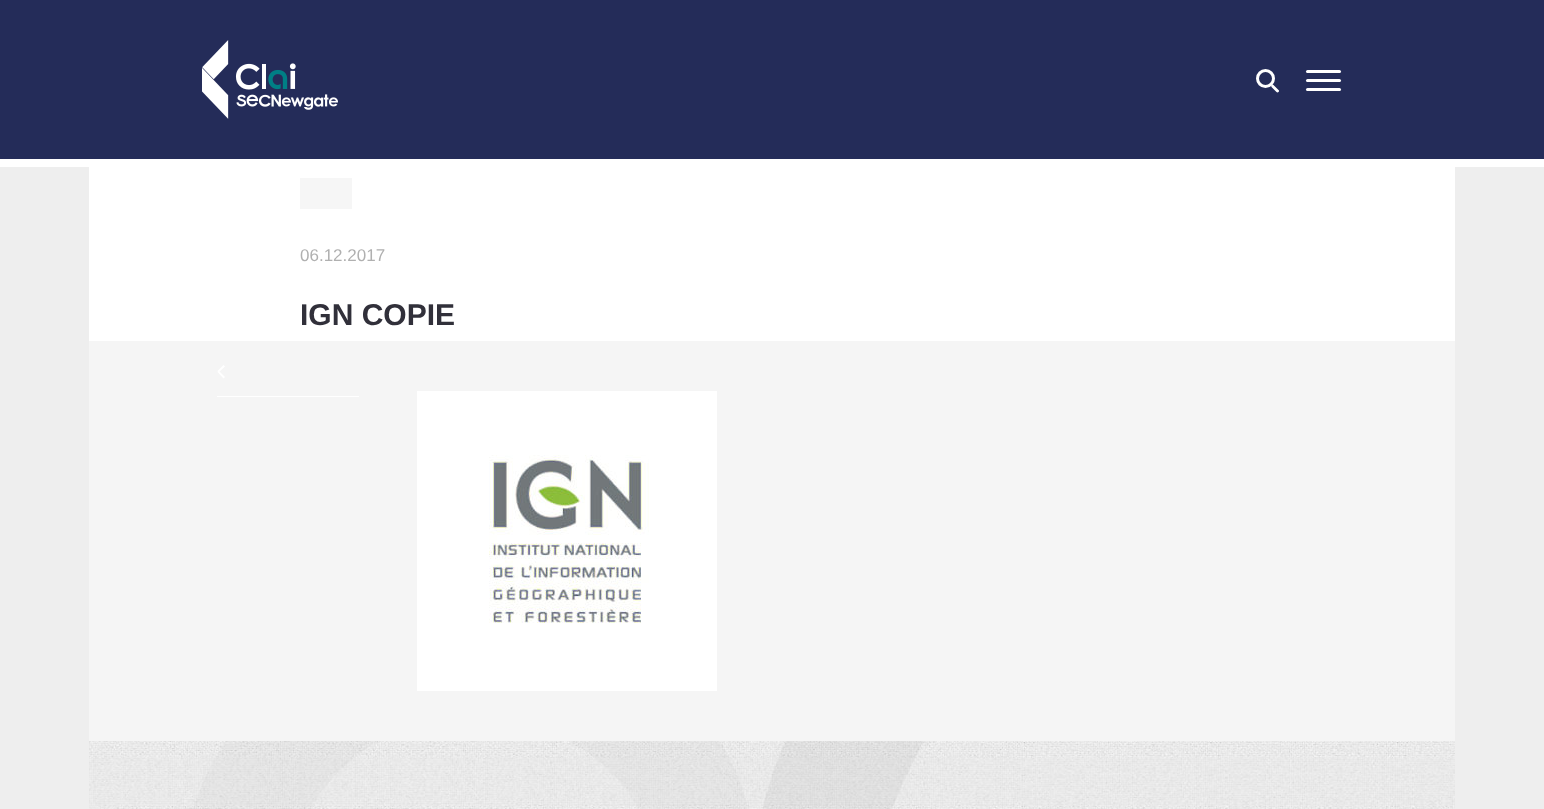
<!DOCTYPE html>
<meta charset="utf-8">
<style>body { margin: 0 } canvas { display: block }</style>
<canvas id="canvas" width="1544" height="809"></canvas>
<img id="img1" src="images/1.png" hidden>
<img id="img2" src="images/2.png" hidden>
<img id="img3" src="images/3.png" hidden>
<script>
window.onload = function () {
    const canvas = document.getElementById('canvas');
    const context = canvas.getContext('2d');
    context.miterLimit = 4;
    context.fontKerning = 'normal';

    context.fillStyle = 'rgb(238, 238, 238)';
    context.fillRect(0, 0, 1544, 809);
    context.fillStyle = 'rgb(36, 44, 89)';
    context.fillRect(0, 0, 1544, 159);
    context.drawImage(document.getElementById('img1'), 202, 40, 136, 79);
    context.beginPath();
    context.arc(1265.5, 78.5, 8, 0, 2 * Math.PI);
    context.strokeStyle = 'rgb(255, 255, 255)';
    context.lineWidth = 3;
    context.stroke();
    context.fillStyle = 'rgb(255, 255, 255)';
    context.beginPath();
    context.moveTo(1273.5, 85);
    context.lineTo(1279, 90.5);
    context.bezierCurveTo(1279.5, 92, 1277.5, 93, 1276.5, 92);
    context.lineTo(1271.5, 87);
    context.bezierCurveTo(1270.5, 85.5, 1272.5, 83.5, 1273.5, 85);
    context.closePath();
    context.fill();
    context.beginPath();
    context.roundRect(1306, 79, 35, 3, 1.5);
    context.fill();
    context.beginPath();
    context.roundRect(1306, 70, 35, 3, 1.5);
    context.fill();
    context.beginPath();
    context.roundRect(1306, 88, 35, 3, 1.5);
    context.fill();
    context.fillStyle = 'rgb(245, 245, 245)';
    context.fillRect(89, 341, 1366, 400);
    context.fillStyle = 'rgb(255, 255, 255)';
    context.fillRect(0, 159, 1544, 8);
    context.fillRect(89, 167, 1366, 174);
    context.fillStyle = 'rgb(246, 246, 246)';
    context.fillRect(300, 178, 52, 31);
    context.fillStyle = 'rgb(255, 255, 255)';
    context.fillRect(217, 396, 142, 1);
    context.beginPath();
    context.moveTo(223.5, 378.5);
    context.lineTo(217.5, 372);
    context.lineTo(218.5, 370.5);
    context.lineTo(225, 377);
    context.closePath();
    context.fill();
    context.beginPath();
    context.moveTo(218.5, 372.5);
    context.lineTo(217.5, 371);
    context.lineTo(223.5, 365);
    context.lineTo(225, 366.5);
    context.closePath();
    context.fill();
    context.drawImage(document.getElementById('img2'), 417, 391, 300, 300);
    context.drawImage(document.getElementById('img3'), 89, 741, 1366, 68);
    context.font = '17px Liberation Sans';
    context.fillStyle = 'rgb(176, 176, 176)';
    context.fillText('06.12.2017', 300, 261);
    context.font = 'bold 30px Liberation Sans';
    context.fillStyle = 'rgb(49, 48, 58)';
    context.fillText('IGN COPIE', 300, 325);
};
</script>
